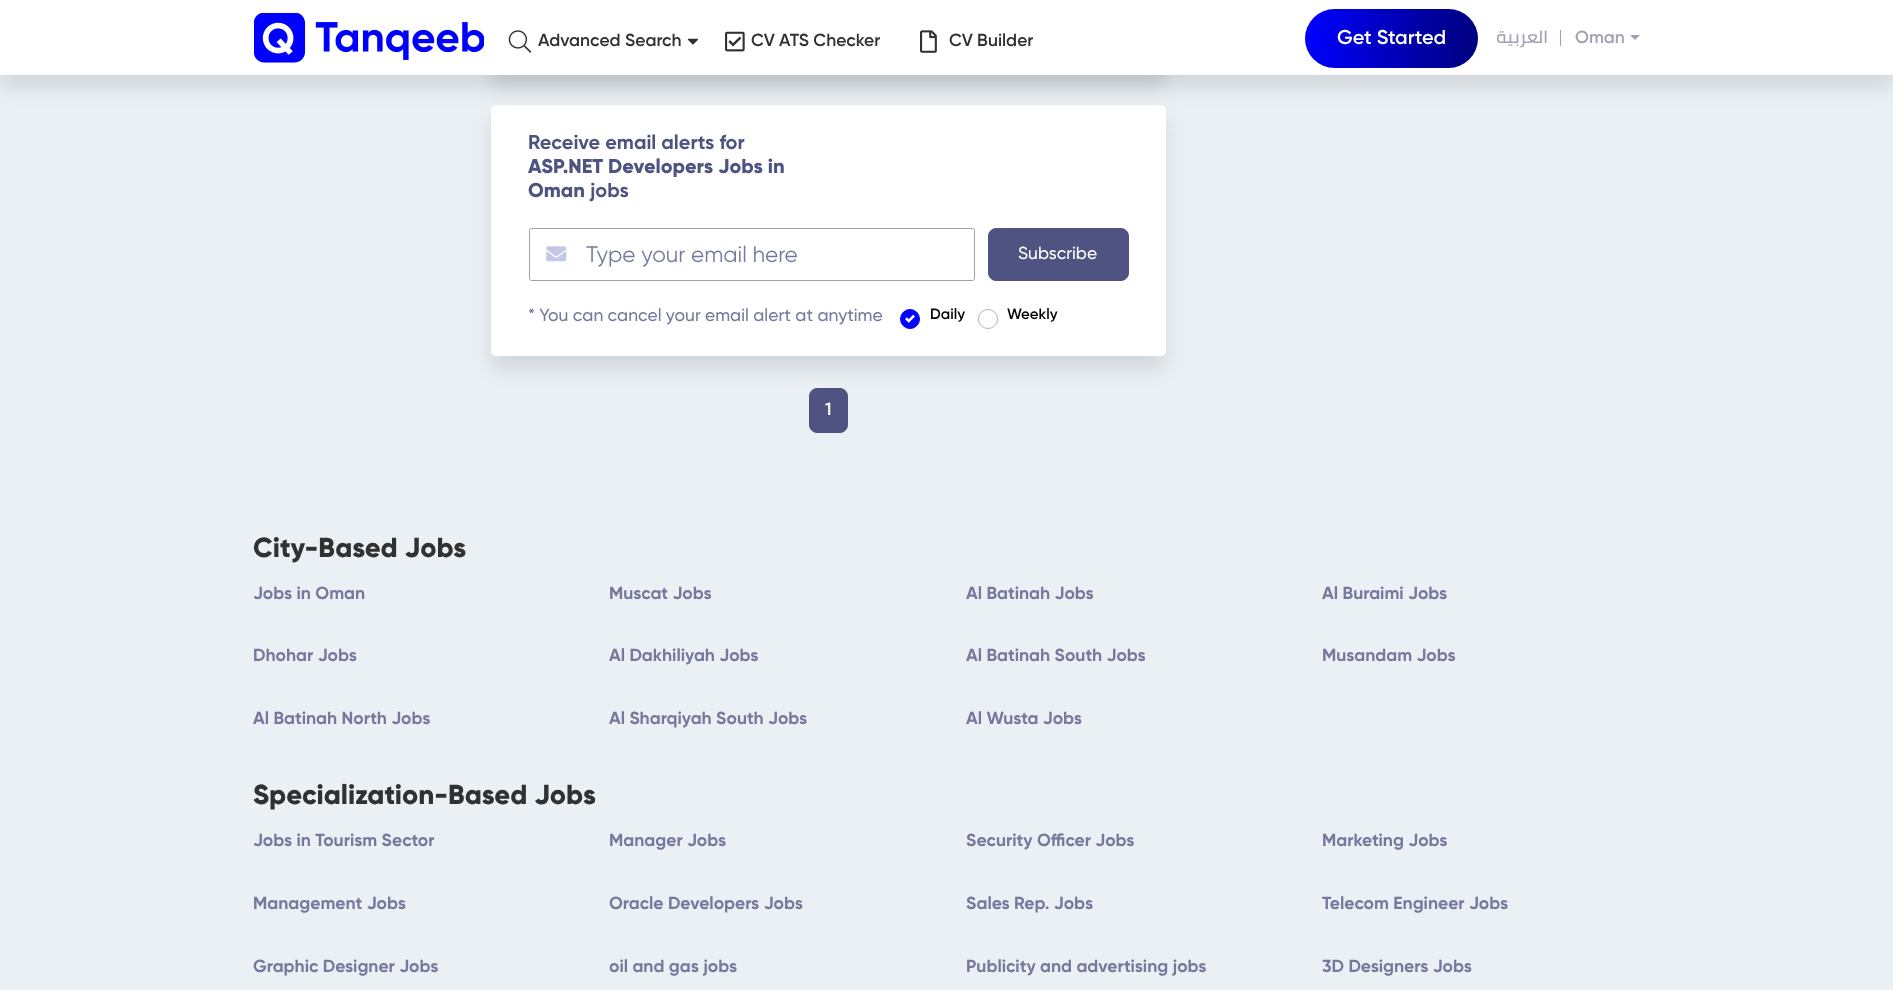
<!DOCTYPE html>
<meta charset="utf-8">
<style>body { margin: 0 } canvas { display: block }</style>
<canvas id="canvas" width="1893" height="990"></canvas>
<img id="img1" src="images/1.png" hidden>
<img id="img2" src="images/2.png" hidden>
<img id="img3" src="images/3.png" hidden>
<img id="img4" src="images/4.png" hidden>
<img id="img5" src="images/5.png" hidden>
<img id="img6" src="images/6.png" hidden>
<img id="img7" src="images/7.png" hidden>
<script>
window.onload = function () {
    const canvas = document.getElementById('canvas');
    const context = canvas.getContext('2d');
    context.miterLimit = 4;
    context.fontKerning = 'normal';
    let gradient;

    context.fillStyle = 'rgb(234, 240, 244)';
    context.fillRect(0, 0, 1893, 990);
    context.fillStyle = 'rgba(0, 0, 0, 0.1)';
    context.filter = 'blur(9.5px)';
    context.beginPath();
    context.roundRect(491, -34, 675, 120, 5);
    context.fill();
    context.filter = 'none';
    context.filter = 'blur(9.5px)';
    context.beginPath();
    context.roundRect(491, 118, 675, 251, 5);
    context.fill();
    context.filter = 'none';
    context.fillStyle = 'rgb(255, 255, 255)';
    context.beginPath();
    context.roundRect(491, 105, 675, 251, 5);
    context.fill();
    context.fillStyle = 'rgba(0, 0, 0, 0.1)';
    context.filter = 'blur(9.5px)';
    context.beginPath();
    context.rect(0, 13, 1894, 75);
    context.fill();
    context.filter = 'none';
    context.fillStyle = 'rgb(255, 255, 255)';
    context.fillRect(0, 0, 1893, 75);
    context.drawImage(document.getElementById('img1'), 254, 13, 230, 50);
    context.drawImage(document.getElementById('img2'), 508, 30, 24, 23);
    context.drawImage(document.getElementById('img3'), 687, 38, 11, 7);
    context.drawImage(document.getElementById('img4'), 725, 31, 20, 21);
    context.drawImage(document.getElementById('img5'), 920, 30, 17, 23);
    gradient = context.createLinearGradient(1478, 38, 1305, 38);
    gradient.addColorStop(0, 'rgb(0, 0, 128)');
    gradient.addColorStop(0.32, 'rgb(0, 0, 165)');
    gradient.addColorStop(1, 'rgb(0, 0, 255)');
    context.fillStyle = gradient;
    context.beginPath();
    context.roundRect(1305, 9, 173, 59, 29.5);
    context.fill();
    context.fillStyle = 'rgb(159, 162, 181)';
    context.fillRect(1560, 30, 1, 16);
    context.beginPath();
    context.moveTo(1630, 35);
    context.lineTo(1640, 35);
    context.lineTo(1635, 40);
    context.closePath();
    context.fill();
    context.beginPath();
    context.roundRect(529.5, 228.5, 445, 52, 2);
    context.strokeStyle = 'rgb(162, 162, 162)';
    context.stroke();
    context.drawImage(document.getElementById('img6'), 546, 246, 21, 16);
    context.fillStyle = 'rgb(78, 83, 129)';
    context.beginPath();
    context.roundRect(988.5, 228.5, 140, 52, 7.5);
    context.fill();
    context.strokeStyle = 'rgb(78, 83, 129)';
    context.stroke();
    context.fillStyle = 'rgb(0, 0, 255)';
    context.beginPath();
    context.arc(910, 319, 9.5, 0, 2 * Math.PI);
    context.fill();
    context.strokeStyle = 'rgb(0, 0, 255)';
    context.stroke();
    context.drawImage(document.getElementById('img7'), 905, 314, 10, 9);
    context.beginPath();
    context.arc(988, 319, 9.5, 0, 2 * Math.PI);
    context.strokeStyle = 'rgb(173, 181, 189)';
    context.stroke();
    context.fillStyle = 'rgb(78, 83, 129)';
    context.beginPath();
    context.roundRect(809.5, 388.5, 38, 44, 7.5);
    context.fill();
    context.strokeStyle = 'rgb(78, 83, 129)';
    context.stroke();
    context.font = '600 17.5px Gilroy';
    context.fillStyle = 'rgb(49, 49, 49)';
    context.fillText('Advanced Search', 538, 46);
    context.fillText('CV ATS Checker', 751, 46);
    context.fillText('CV Builder', 949, 46);
    context.font = '600 20px Gilroy';
    context.fillStyle = 'rgb(255, 255, 255)';
    context.fillText('Get Started', 1337, 44);
    context.direction = 'rtl';
    context.font = '600 17.5px Cairo';
    context.fillStyle = 'rgb(159, 162, 181)';
    context.fillText('العربية', 1548, 43);
    context.direction = 'ltr';
    context.font = '600 17.5px Gilroy';
    context.fillText('Oman', 1575, 43);
    context.font = 'bold 20px Gilroy';
    context.fillStyle = 'rgb(78, 83, 129)';
    context.fillText('Receive email alerts for', 528, 149);
    context.font = '800 20px Gilroy';
    context.fillText('ASP.NET Developers Jobs in', 528, 173);
    context.fillText('Oman', 528, 197);
    context.font = 'bold 20px Gilroy';
    context.fillText('jobs', 590, 197);
    context.font = '22.5px Gilroy';
    context.fillStyle = 'rgb(117, 121, 157)';
    context.fillText('Type your email here', 586, 262);
    context.font = '500 17.5px Gilroy';
    context.fillStyle = 'rgb(255, 255, 255)';
    context.fillText('Subscribe', 1018, 259);
    context.fillStyle = 'rgb(117, 121, 157)';
    context.fillText('* You can cancel your email alert at anytime', 528, 321);
    context.font = '600 15px Gilroy';
    context.fillStyle = 'rgb(0, 0, 0)';
    context.fillText('Daily', 930, 319);
    context.fillText('Weekly', 1007, 319);
    context.font = '600 17.5px Gilroy';
    context.fillStyle = 'rgb(255, 255, 255)';
    context.fillText('1', 825, 415);
    context.font = '800 27.5px Gilroy';
    context.fillStyle = 'rgb(49, 49, 49)';
    context.fillText('City-Based Jobs', 253, 557);
    context.font = 'bold 17.5px Gilroy';
    context.fillStyle = 'rgb(117, 121, 157)';
    context.fillText('Jobs in Oman', 253, 599);
    context.fillText('Muscat Jobs', 609, 599);
    context.fillText('Al Batinah Jobs', 966, 599);
    context.fillText('Al Buraimi Jobs', 1322, 599);
    context.fillText('Dhohar Jobs', 253, 661);
    context.fillText('Al Dakhiliyah Jobs', 609, 661);
    context.fillText('Al Batinah South Jobs', 966, 661);
    context.fillText('Musandam Jobs', 1322, 661);
    context.fillText('Al Batinah North Jobs', 253, 724);
    context.fillText('Al Sharqiyah South Jobs', 609, 724);
    context.fillText('Al Wusta Jobs', 966, 724);
    context.font = '800 27.5px Gilroy';
    context.fillStyle = 'rgb(49, 49, 49)';
    context.fillText('Specialization-Based Jobs', 253, 804);
    context.font = 'bold 17.5px Gilroy';
    context.fillStyle = 'rgb(117, 121, 157)';
    context.fillText('Jobs in Tourism Sector', 253, 846);
    context.fillText('Manager Jobs', 609, 846);
    context.fillText('Security Officer Jobs', 966, 846);
    context.fillText('Marketing Jobs', 1322, 846);
    context.fillText('Management Jobs', 253, 909);
    context.fillText('Oracle Developers Jobs', 609, 909);
    context.fillText('Sales Rep. Jobs', 966, 909);
    context.fillText('Telecom Engineer Jobs', 1322, 909);
    context.fillText('Graphic Designer Jobs', 253, 972);
    context.fillText('oil and gas jobs', 609, 972);
    context.fillText('Publicity and advertising jobs', 966, 972);
    context.fillText('3D Designers Jobs', 1322, 972);
};
</script>
